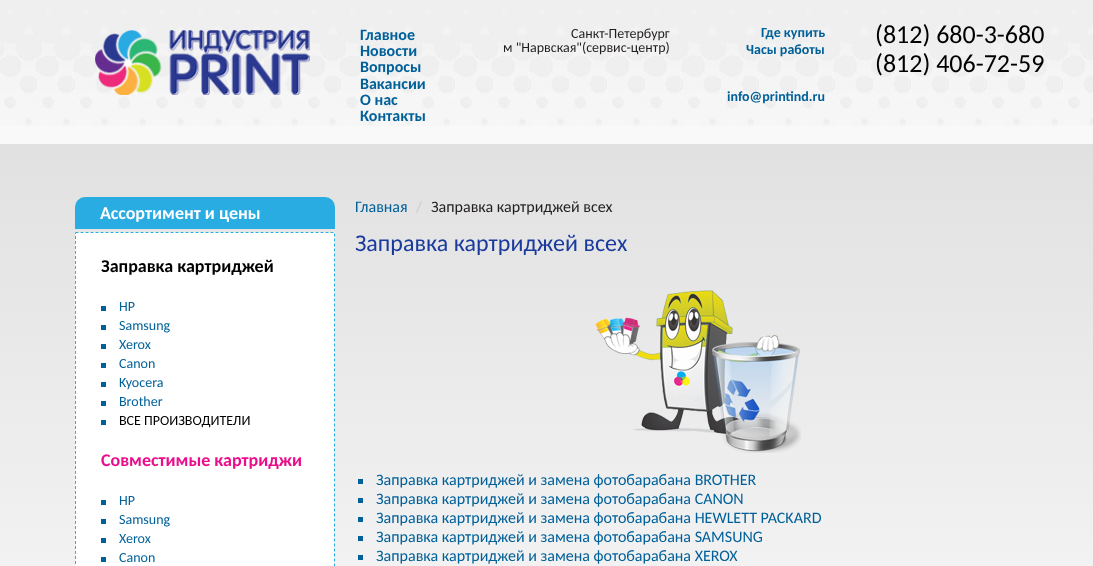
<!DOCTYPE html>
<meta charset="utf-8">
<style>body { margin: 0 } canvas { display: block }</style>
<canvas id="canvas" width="1093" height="566"></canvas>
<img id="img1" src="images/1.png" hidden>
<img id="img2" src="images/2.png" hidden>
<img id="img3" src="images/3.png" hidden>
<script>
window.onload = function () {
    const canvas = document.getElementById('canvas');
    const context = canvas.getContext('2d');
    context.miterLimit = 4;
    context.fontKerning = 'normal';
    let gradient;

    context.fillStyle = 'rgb(249, 249, 249)';
    context.fillRect(0, 0, 1093, 566);
    context.drawImage(document.getElementById('img1'), 0, 0, 1093, 126);
    context.drawImage(document.getElementById('img2'), 95, 30, 215, 65);
    gradient = context.createLinearGradient(575, 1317, 575, 144);
    gradient.addColorStop(0, 'rgb(225, 225, 225)');
    gradient.addColorStop(0.49, 'rgb(249, 249, 249)');
    gradient.addColorStop(1, 'rgb(225, 225, 225)');
    context.fillStyle = gradient;
    context.fillRect(0, 144, 1093, 422);
    context.fillStyle = 'rgb(41, 172, 226)';
    context.beginPath();
    context.roundRect(75, 197, 260, 32, [10, 10, 0, 0]);
    context.fill();
    context.fillStyle = 'rgb(255, 255, 255)';
    context.fillRect(75, 232, 260, 334);
    context.beginPath();
    context.moveTo(75.5, 232.5);
    context.lineTo(334.5, 232.5);
    context.lineTo(334.5, 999);
    context.bezierCurveTo(334.5, 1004, 330, 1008.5, 325, 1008.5);
    context.lineTo(85, 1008.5);
    context.bezierCurveTo(80, 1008.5, 75.5, 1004, 75.5, 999);
    context.closePath();
    context.strokeStyle = 'rgb(41, 172, 226)';
    context.setLineDash([3, 2]);
    context.stroke();
    context.fillStyle = 'rgb(0, 96, 154)';
    context.fillRect(101, 306, 5, 5);
    context.fillRect(101, 325, 5, 5);
    context.fillRect(101, 344, 5, 5);
    context.fillRect(101, 363, 5, 5);
    context.fillRect(101, 382, 5, 5);
    context.fillRect(101, 401, 5, 5);
    context.fillRect(101, 420, 5, 5);
    context.fillRect(101, 500, 5, 5);
    context.fillRect(101, 519, 5, 5);
    context.fillRect(101, 538, 5, 5);
    context.fillRect(101, 557, 5, 5);
    context.drawImage(document.getElementById('img3'), 595, 290, 206, 163);
    context.fillRect(358, 479, 5, 5);
    context.fillRect(358, 498, 5, 5);
    context.fillRect(358, 517, 5, 5);
    context.fillRect(358, 536, 5, 5);
    context.fillRect(358, 555, 5, 5);
    context.font = 'bold 16px Carlito';
    context.fillText('Главное', 360, 40);
    context.fillText('Новости', 360, 56);
    context.fillText('Вопросы', 360, 72);
    context.fillText('Вакансии', 360, 89);
    context.fillText('О нас', 360, 105);
    context.fillText('Контакты', 360, 121);
    context.font = '14px Carlito';
    context.fillStyle = 'rgb(34, 30, 31)';
    context.fillText('Санкт-Петербург', 571, 38);
    context.fillText('м "Нарвская"(сервис-центр)', 503, 52);
    context.font = 'bold 14px Carlito';
    context.fillStyle = 'rgb(0, 96, 154)';
    context.fillText('Где купить', 761, 37);
    context.fillText('Часы работы', 746, 54);
    context.fillText('info@printind.ru', 727, 101);
    context.font = '26px Carlito';
    context.fillStyle = 'rgb(0, 0, 0)';
    context.fillText('(812) 680-3-680', 875, 43);
    context.fillText('(812) 406-72-59', 875, 72);
    context.font = 'bold 18px Carlito';
    context.fillStyle = 'rgb(254, 254, 254)';
    context.fillText('Ассортимент и цены', 100, 219);
    context.fillStyle = 'rgb(0, 0, 0)';
    context.fillText('Заправка картриджей', 101, 272);
    context.font = '14px Carlito';
    context.fillStyle = 'rgb(0, 96, 154)';
    context.fillText('HP', 119, 311);
    context.fillText('Samsung', 119, 330);
    context.fillText('Xerox', 119, 349);
    context.fillText('Canon', 119, 368);
    context.fillText('Kyocera', 119, 387);
    context.fillText('Brother', 119, 406);
    context.fillStyle = 'rgb(0, 0, 0)';
    context.fillText('ВСЕ ПРОИЗВОДИТЕЛИ', 119, 425);
    context.font = 'bold 18px Carlito';
    context.fillStyle = 'rgb(234, 14, 141)';
    context.fillText('Совместимые картриджи', 101, 466);
    context.font = '14px Carlito';
    context.fillStyle = 'rgb(0, 96, 154)';
    context.fillText('HP', 119, 505);
    context.fillText('Samsung', 119, 524);
    context.fillText('Xerox', 119, 543);
    context.fillText('Canon', 119, 562);
    context.font = '16px Carlito';
    context.fillText('Главная', 355, 212);
    context.fillStyle = 'rgb(204, 204, 204)';
    context.fillText('/', 416, 212);
    context.fillStyle = 'rgb(34, 30, 31)';
    context.fillText('Заправка картриджей всех', 431, 212);
    context.font = '24px Carlito';
    context.fillStyle = 'rgb(26, 59, 157)';
    context.fillText('Заправка картриджей всех', 355, 251);
    context.font = '16px Carlito';
    context.fillStyle = 'rgb(0, 96, 154)';
    context.fillText('Заправка картриджей и замена фотобарабана BROTHER', 376, 485);
    context.fillText('Заправка картриджей и замена фотобарабана CANON', 376, 504);
    context.fillText('Заправка картриджей и замена фотобарабана HEWLETT PACKARD', 376, 523);
    context.fillText('Заправка картриджей и замена фотобарабана SAMSUNG', 376, 542);
    context.fillText('Заправка картриджей и замена фотобарабана XEROX', 376, 561);
};
</script>
